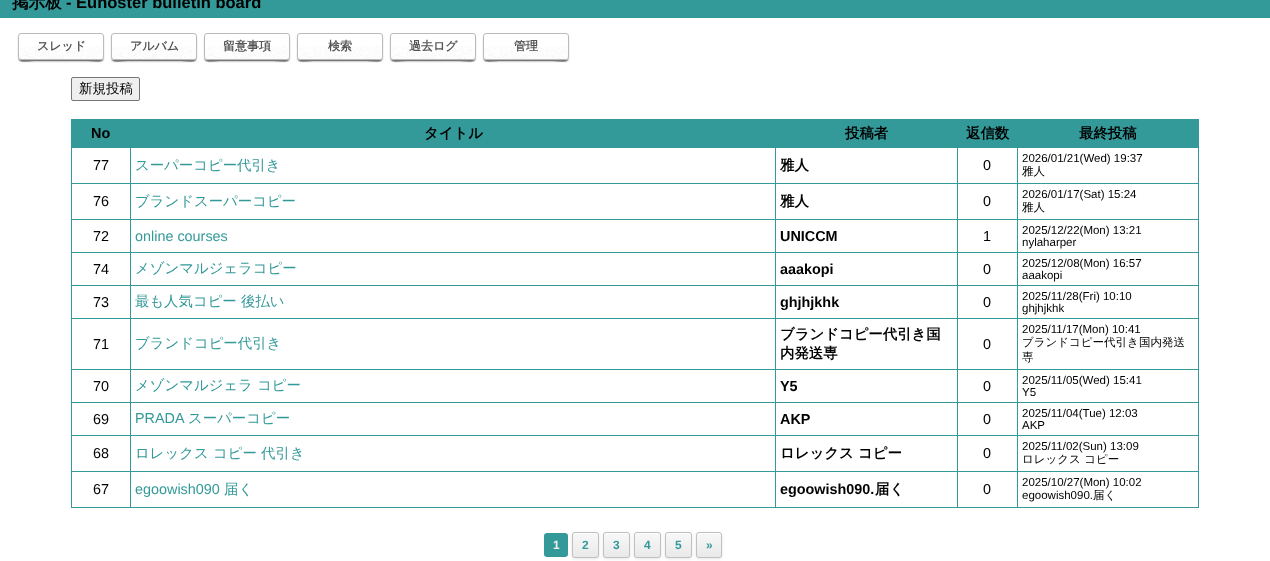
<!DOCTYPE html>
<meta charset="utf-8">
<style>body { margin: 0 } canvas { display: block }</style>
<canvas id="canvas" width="1270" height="561"></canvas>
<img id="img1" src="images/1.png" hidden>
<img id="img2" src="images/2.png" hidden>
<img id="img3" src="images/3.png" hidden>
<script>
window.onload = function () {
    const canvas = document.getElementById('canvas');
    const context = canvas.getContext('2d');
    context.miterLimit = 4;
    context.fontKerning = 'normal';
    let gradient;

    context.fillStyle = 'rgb(255, 255, 255)';
    context.fillRect(0, 0, 1270, 561);
    context.fillStyle = 'rgb(51, 153, 153)';
    context.fillRect(0, 0, 1270, 18);
    context.save();
    context.beginPath();
    context.moveTo(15, 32);
    context.lineTo(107, 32);
    context.lineTo(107, 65);
    context.lineTo(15, 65);
    context.closePath();
    context.moveTo(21, 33);
    context.lineTo(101, 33);
    context.bezierCurveTo(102.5, 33, 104, 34.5, 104, 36);
    context.lineTo(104, 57);
    context.bezierCurveTo(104, 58.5, 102.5, 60, 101, 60);
    context.lineTo(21, 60);
    context.bezierCurveTo(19.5, 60, 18, 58.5, 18, 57);
    context.lineTo(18, 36);
    context.bezierCurveTo(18, 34.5, 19.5, 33, 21, 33);
    context.closePath();
    context.clip('evenodd');
    context.fillStyle = 'rgba(0, 0, 0, 0.5)';
    context.filter = 'blur(1px)';
    context.beginPath();
    context.roundRect(19, 36, 84, 25, 2);
    context.fill();
    context.filter = 'none';
    context.restore();
    context.fillStyle = 'rgba(0, 0, 0, 0.3)';
    context.beginPath();
    context.moveTo(18, 57);
    context.bezierCurveTo(18, 65, 31, 61, 34, 61);
    context.lineTo(88, 61);
    context.bezierCurveTo(91, 61, 104, 65, 104, 57);
    context.bezierCurveTo(104, 59, 103, 60, 101, 60);
    context.lineTo(21, 60);
    context.bezierCurveTo(19, 60, 18, 59, 18, 57);
    context.closePath();
    context.fill();
    context.drawImage(document.getElementById('img1'), 19, 46, 84, 13);
    context.beginPath();
    context.roundRect(18.5, 33.5, 85, 26, 2.5);
    context.strokeStyle = 'rgb(187, 187, 187)';
    context.stroke();
    context.save();
    context.beginPath();
    context.moveTo(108, 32);
    context.lineTo(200, 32);
    context.lineTo(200, 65);
    context.lineTo(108, 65);
    context.closePath();
    context.moveTo(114, 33);
    context.lineTo(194, 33);
    context.bezierCurveTo(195.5, 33, 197, 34.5, 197, 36);
    context.lineTo(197, 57);
    context.bezierCurveTo(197, 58.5, 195.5, 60, 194, 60);
    context.lineTo(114, 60);
    context.bezierCurveTo(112.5, 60, 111, 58.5, 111, 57);
    context.lineTo(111, 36);
    context.bezierCurveTo(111, 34.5, 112.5, 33, 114, 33);
    context.closePath();
    context.clip('evenodd');
    context.fillStyle = 'rgba(0, 0, 0, 0.5)';
    context.filter = 'blur(1px)';
    context.beginPath();
    context.roundRect(112, 36, 84, 25, 2);
    context.fill();
    context.filter = 'none';
    context.restore();
    context.beginPath();
    context.moveTo(111, 57);
    context.bezierCurveTo(111, 65, 124, 61, 127, 61);
    context.lineTo(181, 61);
    context.bezierCurveTo(184, 61, 197, 65, 197, 57);
    context.bezierCurveTo(197, 59, 196, 60, 194, 60);
    context.lineTo(114, 60);
    context.bezierCurveTo(112, 60, 111, 59, 111, 57);
    context.closePath();
    context.fill();
    context.drawImage(document.getElementById('img1'), 112, 46, 84, 13);
    context.beginPath();
    context.roundRect(111.5, 33.5, 85, 26, 2.5);
    context.stroke();
    context.save();
    context.beginPath();
    context.moveTo(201, 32);
    context.lineTo(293, 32);
    context.lineTo(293, 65);
    context.lineTo(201, 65);
    context.closePath();
    context.moveTo(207, 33);
    context.lineTo(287, 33);
    context.bezierCurveTo(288.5, 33, 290, 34.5, 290, 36);
    context.lineTo(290, 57);
    context.bezierCurveTo(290, 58.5, 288.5, 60, 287, 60);
    context.lineTo(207, 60);
    context.bezierCurveTo(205.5, 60, 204, 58.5, 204, 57);
    context.lineTo(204, 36);
    context.bezierCurveTo(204, 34.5, 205.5, 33, 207, 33);
    context.closePath();
    context.clip('evenodd');
    context.fillStyle = 'rgba(0, 0, 0, 0.5)';
    context.filter = 'blur(1px)';
    context.beginPath();
    context.roundRect(205, 36, 84, 25, 2);
    context.fill();
    context.filter = 'none';
    context.restore();
    context.beginPath();
    context.moveTo(204, 57);
    context.bezierCurveTo(204, 65, 217, 61, 220, 61);
    context.lineTo(274, 61);
    context.bezierCurveTo(277, 61, 290, 65, 290, 57);
    context.bezierCurveTo(290, 59, 289, 60, 287, 60);
    context.lineTo(207, 60);
    context.bezierCurveTo(205, 60, 204, 59, 204, 57);
    context.closePath();
    context.fill();
    context.drawImage(document.getElementById('img2'), 205, 46, 84, 13);
    context.beginPath();
    context.roundRect(204.5, 33.5, 85, 26, 2.5);
    context.stroke();
    context.save();
    context.beginPath();
    context.moveTo(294, 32);
    context.lineTo(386, 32);
    context.lineTo(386, 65);
    context.lineTo(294, 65);
    context.closePath();
    context.moveTo(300, 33);
    context.lineTo(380, 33);
    context.bezierCurveTo(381.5, 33, 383, 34.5, 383, 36);
    context.lineTo(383, 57);
    context.bezierCurveTo(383, 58.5, 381.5, 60, 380, 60);
    context.lineTo(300, 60);
    context.bezierCurveTo(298.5, 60, 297, 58.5, 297, 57);
    context.lineTo(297, 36);
    context.bezierCurveTo(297, 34.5, 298.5, 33, 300, 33);
    context.closePath();
    context.clip('evenodd');
    context.fillStyle = 'rgba(0, 0, 0, 0.5)';
    context.filter = 'blur(1px)';
    context.beginPath();
    context.roundRect(298, 36, 84, 25, 2);
    context.fill();
    context.filter = 'none';
    context.restore();
    context.beginPath();
    context.moveTo(297, 57);
    context.bezierCurveTo(297, 65, 310, 61, 313, 61);
    context.lineTo(367, 61);
    context.bezierCurveTo(370, 61, 383, 65, 383, 57);
    context.bezierCurveTo(383, 59, 382, 60, 380, 60);
    context.lineTo(300, 60);
    context.bezierCurveTo(298, 60, 297, 59, 297, 57);
    context.closePath();
    context.fill();
    context.drawImage(document.getElementById('img1'), 298, 46, 84, 13);
    context.beginPath();
    context.roundRect(297.5, 33.5, 85, 26, 2.5);
    context.stroke();
    context.save();
    context.beginPath();
    context.moveTo(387, 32);
    context.lineTo(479, 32);
    context.lineTo(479, 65);
    context.lineTo(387, 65);
    context.closePath();
    context.moveTo(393, 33);
    context.lineTo(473, 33);
    context.bezierCurveTo(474.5, 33, 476, 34.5, 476, 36);
    context.lineTo(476, 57);
    context.bezierCurveTo(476, 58.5, 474.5, 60, 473, 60);
    context.lineTo(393, 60);
    context.bezierCurveTo(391.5, 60, 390, 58.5, 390, 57);
    context.lineTo(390, 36);
    context.bezierCurveTo(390, 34.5, 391.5, 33, 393, 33);
    context.closePath();
    context.clip('evenodd');
    context.fillStyle = 'rgba(0, 0, 0, 0.5)';
    context.filter = 'blur(1px)';
    context.beginPath();
    context.roundRect(391, 36, 84, 25, 2);
    context.fill();
    context.filter = 'none';
    context.restore();
    context.beginPath();
    context.moveTo(390, 57);
    context.bezierCurveTo(390, 65, 403, 61, 406, 61);
    context.lineTo(460, 61);
    context.bezierCurveTo(463, 61, 476, 65, 476, 57);
    context.bezierCurveTo(476, 59, 475, 60, 473, 60);
    context.lineTo(393, 60);
    context.bezierCurveTo(391, 60, 390, 59, 390, 57);
    context.closePath();
    context.fill();
    context.drawImage(document.getElementById('img1'), 391, 46, 84, 13);
    context.beginPath();
    context.roundRect(390.5, 33.5, 85, 26, 2.5);
    context.stroke();
    context.save();
    context.beginPath();
    context.moveTo(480, 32);
    context.lineTo(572, 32);
    context.lineTo(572, 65);
    context.lineTo(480, 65);
    context.closePath();
    context.moveTo(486, 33);
    context.lineTo(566, 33);
    context.bezierCurveTo(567.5, 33, 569, 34.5, 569, 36);
    context.lineTo(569, 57);
    context.bezierCurveTo(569, 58.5, 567.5, 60, 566, 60);
    context.lineTo(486, 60);
    context.bezierCurveTo(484.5, 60, 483, 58.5, 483, 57);
    context.lineTo(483, 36);
    context.bezierCurveTo(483, 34.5, 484.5, 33, 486, 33);
    context.closePath();
    context.clip('evenodd');
    context.fillStyle = 'rgba(0, 0, 0, 0.5)';
    context.filter = 'blur(1px)';
    context.beginPath();
    context.roundRect(484, 36, 84, 25, 2);
    context.fill();
    context.filter = 'none';
    context.restore();
    context.beginPath();
    context.moveTo(483, 57);
    context.bezierCurveTo(483, 65, 496, 61, 499, 61);
    context.lineTo(553, 61);
    context.bezierCurveTo(556, 61, 569, 65, 569, 57);
    context.bezierCurveTo(569, 59, 568, 60, 566, 60);
    context.lineTo(486, 60);
    context.bezierCurveTo(484, 60, 483, 59, 483, 57);
    context.closePath();
    context.fill();
    context.drawImage(document.getElementById('img3'), 484, 46, 84, 13);
    context.beginPath();
    context.roundRect(483.5, 33.5, 85, 26, 2.5);
    context.stroke();
    context.fillStyle = 'rgb(239, 239, 239)';
    context.beginPath();
    context.roundRect(71.5, 77.5, 68, 23, 1.5);
    context.fill();
    context.strokeStyle = 'rgb(118, 118, 118)';
    context.stroke();
    context.fillStyle = 'rgb(51, 153, 153)';
    context.fillRect(71, 119, 1128, 28);
    context.fillRect(1017, 147, 182, 1);
    context.fillRect(1017, 183, 182, 1);
    context.fillRect(1017, 219, 182, 1);
    context.fillRect(1017, 252, 182, 1);
    context.fillRect(1017, 285, 182, 1);
    context.fillRect(1017, 318, 182, 1);
    context.fillRect(1017, 369, 182, 1);
    context.fillRect(1017, 402, 182, 1);
    context.fillRect(1017, 435, 182, 1);
    context.fillRect(1017, 471, 182, 1);
    context.fillRect(1198, 471, 1, 37);
    context.fillRect(1017, 507, 182, 1);
    context.fillRect(1017, 471, 1, 37);
    context.fillRect(957, 471, 61, 1);
    context.fillRect(1017, 435, 1, 37);
    context.fillRect(957, 435, 61, 1);
    context.fillRect(1017, 402, 1, 34);
    context.fillRect(957, 402, 61, 1);
    context.fillRect(1017, 369, 1, 34);
    context.fillRect(957, 369, 61, 1);
    context.fillRect(1017, 318, 1, 52);
    context.fillRect(957, 318, 61, 1);
    context.fillRect(1017, 285, 1, 34);
    context.fillRect(957, 285, 61, 1);
    context.fillRect(1017, 252, 1, 34);
    context.fillRect(957, 252, 61, 1);
    context.fillRect(1017, 219, 1, 34);
    context.fillRect(957, 219, 61, 1);
    context.fillRect(1017, 183, 1, 37);
    context.fillRect(957, 183, 61, 1);
    context.fillRect(1017, 147, 1, 37);
    context.fillRect(957, 147, 61, 1);
    context.fillRect(957, 507, 61, 1);
    context.fillRect(957, 471, 1, 37);
    context.fillRect(775, 471, 183, 1);
    context.fillRect(957, 435, 1, 37);
    context.fillRect(775, 435, 183, 1);
    context.fillRect(957, 402, 1, 34);
    context.fillRect(775, 402, 183, 1);
    context.fillRect(957, 369, 1, 34);
    context.fillRect(775, 369, 183, 1);
    context.fillRect(957, 318, 1, 52);
    context.fillRect(775, 318, 183, 1);
    context.fillRect(957, 285, 1, 34);
    context.fillRect(775, 285, 183, 1);
    context.fillRect(957, 252, 1, 34);
    context.fillRect(775, 252, 183, 1);
    context.fillRect(957, 219, 1, 34);
    context.fillRect(775, 219, 183, 1);
    context.fillRect(957, 183, 1, 37);
    context.fillRect(775, 183, 183, 1);
    context.fillRect(957, 147, 1, 37);
    context.fillRect(775, 147, 183, 1);
    context.fillRect(775, 507, 183, 1);
    context.fillRect(775, 471, 1, 37);
    context.fillRect(130, 471, 646, 1);
    context.fillRect(775, 435, 1, 37);
    context.fillRect(130, 435, 646, 1);
    context.fillRect(775, 402, 1, 34);
    context.fillRect(130, 402, 646, 1);
    context.fillRect(775, 369, 1, 34);
    context.fillRect(130, 369, 646, 1);
    context.fillRect(775, 318, 1, 52);
    context.fillRect(130, 318, 646, 1);
    context.fillRect(775, 285, 1, 34);
    context.fillRect(130, 285, 646, 1);
    context.fillRect(775, 252, 1, 34);
    context.fillRect(130, 252, 646, 1);
    context.fillRect(775, 219, 1, 34);
    context.fillRect(130, 219, 646, 1);
    context.fillRect(775, 183, 1, 37);
    context.fillRect(130, 183, 646, 1);
    context.fillRect(775, 147, 1, 37);
    context.fillRect(130, 147, 646, 1);
    context.fillRect(130, 507, 646, 1);
    context.fillRect(130, 471, 1, 37);
    context.fillRect(71, 471, 60, 1);
    context.fillRect(130, 435, 1, 37);
    context.fillRect(71, 435, 60, 1);
    context.fillRect(130, 402, 1, 34);
    context.fillRect(71, 402, 60, 1);
    context.fillRect(130, 369, 1, 34);
    context.fillRect(71, 369, 60, 1);
    context.fillRect(130, 318, 1, 52);
    context.fillRect(71, 318, 60, 1);
    context.fillRect(130, 285, 1, 34);
    context.fillRect(71, 285, 60, 1);
    context.fillRect(130, 252, 1, 34);
    context.fillRect(71, 252, 60, 1);
    context.fillRect(130, 219, 1, 34);
    context.fillRect(71, 219, 60, 1);
    context.fillRect(130, 183, 1, 37);
    context.fillRect(71, 183, 60, 1);
    context.fillRect(130, 147, 1, 37);
    context.fillRect(71, 147, 60, 1);
    context.fillRect(71, 507, 60, 1);
    context.fillRect(71, 471, 1, 37);
    context.fillRect(71, 435, 1, 37);
    context.fillRect(71, 402, 1, 34);
    context.fillRect(71, 369, 1, 34);
    context.fillRect(71, 318, 1, 52);
    context.fillRect(71, 285, 1, 34);
    context.fillRect(71, 252, 1, 34);
    context.fillRect(71, 219, 1, 34);
    context.fillRect(71, 183, 1, 37);
    context.fillRect(71, 147, 1, 37);
    context.fillRect(1198, 435, 1, 37);
    context.fillRect(1198, 402, 1, 34);
    context.fillRect(1198, 369, 1, 34);
    context.fillRect(1198, 318, 1, 52);
    context.fillRect(1198, 285, 1, 34);
    context.fillRect(1198, 252, 1, 34);
    context.fillRect(1198, 219, 1, 34);
    context.fillRect(1198, 183, 1, 37);
    context.fillRect(1198, 147, 1, 37);
    context.beginPath();
    context.roundRect(544, 533, 24, 24, 3);
    context.fill();
    context.fillStyle = 'rgba(0, 0, 0, 0.1)';
    context.filter = 'blur(1.5px)';
    context.beginPath();
    context.roundRect(572, 533, 27, 26, 3);
    context.fill();
    context.filter = 'none';
    context.save();
    context.beginPath();
    context.roundRect(572, 532, 27, 26, 3);
    context.clip();
    gradient = context.createLinearGradient(573, 533, 573, 557);
    gradient.addColorStop(0, 'rgb(248, 248, 248)');
    gradient.addColorStop(1, 'rgb(233, 233, 233)');
    context.fillStyle = gradient;
    context.fillRect(572, 533, 27, 24);
    context.restore();
    context.fillStyle = 'rgb(254, 254, 254)';
    context.beginPath();
    context.moveTo(575, 534);
    context.lineTo(592, 534);
    context.bezierCurveTo(596, 534, 597.5, 534, 598, 535.5);
    context.bezierCurveTo(598, 532.5, 595, 533, 592.5, 533);
    context.lineTo(578.5, 533);
    context.bezierCurveTo(574.5, 533, 573, 532.5, 573, 536.5);
    context.bezierCurveTo(573, 535, 574, 534, 575, 534);
    context.closePath();
    context.fill();
    context.beginPath();
    context.roundRect(572.5, 532.5, 26, 25, 2.5);
    context.strokeStyle = 'rgb(192, 192, 192)';
    context.stroke();
    context.fillStyle = 'rgba(0, 0, 0, 0.1)';
    context.filter = 'blur(1.5px)';
    context.beginPath();
    context.roundRect(603, 533, 27, 26, 3);
    context.fill();
    context.filter = 'none';
    context.save();
    context.beginPath();
    context.roundRect(603, 532, 27, 26, 3);
    context.clip();
    gradient = context.createLinearGradient(604, 533, 604, 557);
    gradient.addColorStop(0, 'rgb(248, 248, 248)');
    gradient.addColorStop(1, 'rgb(233, 233, 233)');
    context.fillStyle = gradient;
    context.fillRect(603, 533, 27, 24);
    context.restore();
    context.fillStyle = 'rgb(254, 254, 254)';
    context.beginPath();
    context.moveTo(606, 534);
    context.lineTo(624, 534);
    context.bezierCurveTo(627, 534, 628.5, 534, 629, 535);
    context.bezierCurveTo(629, 532.5, 625.5, 533, 623.5, 533);
    context.lineTo(609.5, 533);
    context.bezierCurveTo(605.5, 533, 604, 532.5, 604, 536.5);
    context.bezierCurveTo(604, 535, 605, 534, 606, 534);
    context.closePath();
    context.fill();
    context.beginPath();
    context.roundRect(603.5, 532.5, 26, 25, 2.5);
    context.stroke();
    context.fillStyle = 'rgba(0, 0, 0, 0.1)';
    context.filter = 'blur(1.5px)';
    context.beginPath();
    context.roundRect(634, 533, 27, 26, 3);
    context.fill();
    context.filter = 'none';
    context.save();
    context.beginPath();
    context.roundRect(634, 532, 27, 26, 3);
    context.clip();
    gradient = context.createLinearGradient(635, 533, 635, 557);
    gradient.addColorStop(0, 'rgb(248, 248, 248)');
    gradient.addColorStop(1, 'rgb(233, 233, 233)');
    context.fillStyle = gradient;
    context.fillRect(634, 533, 27, 24);
    context.restore();
    context.fillStyle = 'rgb(254, 254, 254)';
    context.beginPath();
    context.moveTo(637, 534);
    context.lineTo(654, 534);
    context.bezierCurveTo(658, 534, 659.5, 534, 660, 535.5);
    context.bezierCurveTo(660, 532.5, 657, 533, 654.5, 533);
    context.lineTo(640.5, 533);
    context.bezierCurveTo(636.5, 533, 635, 532.5, 635, 536.5);
    context.bezierCurveTo(635, 535, 636, 534, 637, 534);
    context.closePath();
    context.fill();
    context.beginPath();
    context.roundRect(634.5, 532.5, 26, 25, 2.5);
    context.stroke();
    context.fillStyle = 'rgba(0, 0, 0, 0.1)';
    context.filter = 'blur(1.5px)';
    context.beginPath();
    context.roundRect(665, 533, 27, 26, 3);
    context.fill();
    context.filter = 'none';
    context.save();
    context.beginPath();
    context.roundRect(665, 532, 27, 26, 3);
    context.clip();
    gradient = context.createLinearGradient(666, 533, 666, 557);
    gradient.addColorStop(0, 'rgb(248, 248, 248)');
    gradient.addColorStop(1, 'rgb(233, 233, 233)');
    context.fillStyle = gradient;
    context.fillRect(665, 533, 27, 24);
    context.restore();
    context.fillStyle = 'rgb(254, 254, 254)';
    context.beginPath();
    context.moveTo(668, 534);
    context.lineTo(686, 534);
    context.bezierCurveTo(689, 534, 690.5, 534, 691, 535);
    context.bezierCurveTo(691, 532.5, 687.5, 533, 685.5, 533);
    context.lineTo(671.5, 533);
    context.bezierCurveTo(667.5, 533, 666, 532.5, 666, 536.5);
    context.bezierCurveTo(666, 535, 667, 534, 668, 534);
    context.closePath();
    context.fill();
    context.beginPath();
    context.roundRect(665.5, 532.5, 26, 25, 2.5);
    context.stroke();
    context.fillStyle = 'rgba(0, 0, 0, 0.1)';
    context.filter = 'blur(1.5px)';
    context.beginPath();
    context.roundRect(696, 533, 26, 26, 3);
    context.fill();
    context.filter = 'none';
    context.save();
    context.beginPath();
    context.roundRect(696, 532, 26, 26, 3);
    context.clip();
    gradient = context.createLinearGradient(697, 533, 697, 557);
    gradient.addColorStop(0, 'rgb(248, 248, 248)');
    gradient.addColorStop(1, 'rgb(233, 233, 233)');
    context.fillStyle = gradient;
    context.fillRect(696, 533, 26, 24);
    context.restore();
    context.fillStyle = 'rgb(254, 254, 254)';
    context.beginPath();
    context.moveTo(699, 534);
    context.lineTo(719, 534);
    context.bezierCurveTo(720, 534, 721, 535, 721, 536);
    context.bezierCurveTo(721, 532.5, 719, 533, 715.5, 533);
    context.lineTo(702.5, 533);
    context.bezierCurveTo(699, 533, 697, 532.5, 697, 536);
    context.bezierCurveTo(697, 535, 698, 534, 699, 534);
    context.closePath();
    context.fill();
    context.beginPath();
    context.roundRect(696.5, 532.5, 25, 25, 2.5);
    context.stroke();
    context.font = 'bold 16.5px WenQuanYi Zen Hei';
    context.fillStyle = 'rgb(0, 0, 0)';
    context.fillText('掲示板', 12, 8);
    context.font = 'bold 16.5px Liberation Sans';
    context.fillText('- Eunoster bulletin board', 66, 8);
    context.font = 'bold 12px WenQuanYi Zen Hei';
    context.fillStyle = 'rgb(85, 85, 85)';
    context.fillText('スレッド', 37, 50);
    context.fillText('アルバム', 130, 50);
    context.fillText('留意事項', 223, 50);
    context.fillText('検索', 328, 50);
    context.fillText('過去ログ', 409, 50);
    context.fillText('管理', 514, 50);
    context.font = '500 13.5px WenQuanYi Zen Hei';
    context.fillStyle = 'rgb(0, 0, 0)';
    context.fillText('新規投稿', 79, 93);
    context.font = 'bold 14.4px Liberation Sans';
    context.fillText('No', 91, 138);
    context.font = 'bold 14.4px WenQuanYi Zen Hei';
    context.fillText('タイトル', 424, 138);
    context.fillText('投稿者', 845, 138);
    context.fillText('返信数', 966, 138);
    context.fillText('最終投稿', 1079, 138);
    context.font = '14.4px Liberation Sans';
    context.fillText('77', 93, 170);
    context.font = '500 14.4px WenQuanYi Zen Hei';
    context.fillStyle = 'rgb(51, 153, 153)';
    context.fillText('スーパーコピー代引き', 135, 170);
    context.font = 'bold 14.4px WenQuanYi Zen Hei';
    context.fillStyle = 'rgb(0, 0, 0)';
    context.fillText('雅人', 780, 170);
    context.font = '14.4px Liberation Sans';
    context.fillText('0', 983, 170);
    context.font = '11.5px Liberation Sans';
    context.fillText('2026/01/21(Wed) 19:37', 1022, 162);
    context.font = '500 11.5px WenQuanYi Zen Hei';
    context.fillText('雅人', 1022, 175);
    context.font = '14.4px Liberation Sans';
    context.fillText('76', 93, 206);
    context.font = '500 14.4px WenQuanYi Zen Hei';
    context.fillStyle = 'rgb(51, 153, 153)';
    context.fillText('ブランドスーパーコピー', 135, 206);
    context.font = 'bold 14.4px WenQuanYi Zen Hei';
    context.fillStyle = 'rgb(0, 0, 0)';
    context.fillText('雅人', 780, 206);
    context.font = '14.4px Liberation Sans';
    context.fillText('0', 983, 206);
    context.font = '11.5px Liberation Sans';
    context.fillText('2026/01/17(Sat) 15:24', 1022, 198);
    context.font = '500 11.5px WenQuanYi Zen Hei';
    context.fillText('雅人', 1022, 211);
    context.font = '14.4px Liberation Sans';
    context.fillText('72', 93, 241);
    context.fillStyle = 'rgb(51, 153, 153)';
    context.fillText('online courses', 135, 241);
    context.font = 'bold 14.4px Liberation Sans';
    context.fillStyle = 'rgb(0, 0, 0)';
    context.fillText('UNICCM', 780, 241);
    context.font = '14.4px Liberation Sans';
    context.fillText('1', 983, 241);
    context.font = '11.5px Liberation Sans';
    context.fillText('2025/12/22(Mon) 13:21', 1022, 234);
    context.fillText('nylaharper', 1022, 246);
    context.font = '14.4px Liberation Sans';
    context.fillText('74', 93, 274);
    context.font = '500 14.4px WenQuanYi Zen Hei';
    context.fillStyle = 'rgb(51, 153, 153)';
    context.fillText('メゾンマルジェラコピー', 135, 273);
    context.font = 'bold 14.4px Liberation Sans';
    context.fillStyle = 'rgb(0, 0, 0)';
    context.fillText('aaakopi', 780, 274);
    context.font = '14.4px Liberation Sans';
    context.fillText('0', 983, 274);
    context.font = '11.5px Liberation Sans';
    context.fillText('2025/12/08(Mon) 16:57', 1022, 267);
    context.fillText('aaakopi', 1022, 279);
    context.font = '14.4px Liberation Sans';
    context.fillText('73', 93, 307);
    context.font = '500 14.4px WenQuanYi Zen Hei';
    context.fillStyle = 'rgb(51, 153, 153)';
    context.fillText('最も人気コピー 後払い', 135, 306);
    context.font = 'bold 14.4px Liberation Sans';
    context.fillStyle = 'rgb(0, 0, 0)';
    context.fillText('ghjhjkhk', 780, 307);
    context.font = '14.4px Liberation Sans';
    context.fillText('0', 983, 307);
    context.font = '11.5px Liberation Sans';
    context.fillText('2025/11/28(Fri) 10:10', 1022, 300);
    context.fillText('ghjhjkhk', 1022, 312);
    context.font = '14.4px Liberation Sans';
    context.fillText('71', 93, 349);
    context.font = '500 14.4px WenQuanYi Zen Hei';
    context.fillStyle = 'rgb(51, 153, 153)';
    context.fillText('ブランドコピー代引き', 135, 348);
    context.font = 'bold 14.4px WenQuanYi Zen Hei';
    context.fillStyle = 'rgb(0, 0, 0)';
    context.fillText('ブランドコピー代引き国', 780, 339);
    context.fillText('内発送専', 780, 358);
    context.font = '14.4px Liberation Sans';
    context.fillText('0', 983, 349);
    context.font = '11.5px Liberation Sans';
    context.fillText('2025/11/17(Mon) 10:41', 1022, 333);
    context.font = '500 11.5px WenQuanYi Zen Hei';
    context.fillText('ブランドコピー代引き国内発送', 1022, 346);
    context.fillText('専', 1022, 361);
    context.font = '14.4px Liberation Sans';
    context.fillText('70', 93, 391);
    context.font = '500 14.4px WenQuanYi Zen Hei';
    context.fillStyle = 'rgb(51, 153, 153)';
    context.fillText('メゾンマルジェラ コピー', 135, 390);
    context.font = 'bold 14.4px Liberation Sans';
    context.fillStyle = 'rgb(0, 0, 0)';
    context.fillText('Y5', 780, 391);
    context.font = '14.4px Liberation Sans';
    context.fillText('0', 983, 391);
    context.font = '11.5px Liberation Sans';
    context.fillText('2025/11/05(Wed) 15:41', 1022, 384);
    context.fillText('Y5', 1022, 396);
    context.font = '14.4px Liberation Sans';
    context.fillText('69', 93, 424);
    context.fillStyle = 'rgb(51, 153, 153)';
    context.fillText('PRADA', 135, 423);
    context.font = '500 14.4px WenQuanYi Zen Hei';
    context.fillText('スーパーコピー', 188, 423);
    context.font = 'bold 14.4px Liberation Sans';
    context.fillStyle = 'rgb(0, 0, 0)';
    context.fillText('AKP', 780, 424);
    context.font = '14.4px Liberation Sans';
    context.fillText('0', 983, 424);
    context.font = '11.5px Liberation Sans';
    context.fillText('2025/11/04(Tue) 12:03', 1022, 417);
    context.fillText('AKP', 1022, 429);
    context.font = '14.4px Liberation Sans';
    context.fillText('68', 93, 458);
    context.font = '500 14.4px WenQuanYi Zen Hei';
    context.fillStyle = 'rgb(51, 153, 153)';
    context.fillText('ロレックス コピー 代引き', 135, 458);
    context.font = 'bold 14.4px WenQuanYi Zen Hei';
    context.fillStyle = 'rgb(0, 0, 0)';
    context.fillText('ロレックス コピー', 780, 458);
    context.font = '14.4px Liberation Sans';
    context.fillText('0', 983, 458);
    context.font = '11.5px Liberation Sans';
    context.fillText('2025/11/02(Sun) 13:09', 1022, 450);
    context.font = '500 11.5px WenQuanYi Zen Hei';
    context.fillText('ロレックス コピー', 1022, 463);
    context.font = '14.4px Liberation Sans';
    context.fillText('67', 93, 494);
    context.fillStyle = 'rgb(51, 153, 153)';
    context.fillText('egoowish090', 135, 494);
    context.font = '500 14.4px WenQuanYi Zen Hei';
    context.fillText('届く', 224, 494);
    context.font = 'bold 14.4px Liberation Sans';
    context.fillStyle = 'rgb(0, 0, 0)';
    context.fillText('egoowish090.', 780, 494);
    context.font = 'bold 14.4px WenQuanYi Zen Hei';
    context.fillText('届く', 875, 494);
    context.font = '14.4px Liberation Sans';
    context.fillText('0', 983, 494);
    context.font = '11.5px Liberation Sans';
    context.fillText('2025/10/27(Mon) 10:02', 1022, 486);
    context.fillText('egoowish090.', 1022, 499);
    context.font = '500 11.5px WenQuanYi Zen Hei';
    context.fillText('届く', 1093, 499);
    context.font = 'bold 12px Liberation Sans';
    context.fillStyle = 'rgb(240, 240, 240)';
    context.fillText('1', 553, 549);
    context.fillStyle = 'rgb(51, 153, 153)';
    context.fillText('2', 582, 549);
    context.fillText('3', 613, 549);
    context.fillText('4', 644, 549);
    context.fillText('5', 675, 549);
    context.fillText('»', 706, 549);
};
</script>
